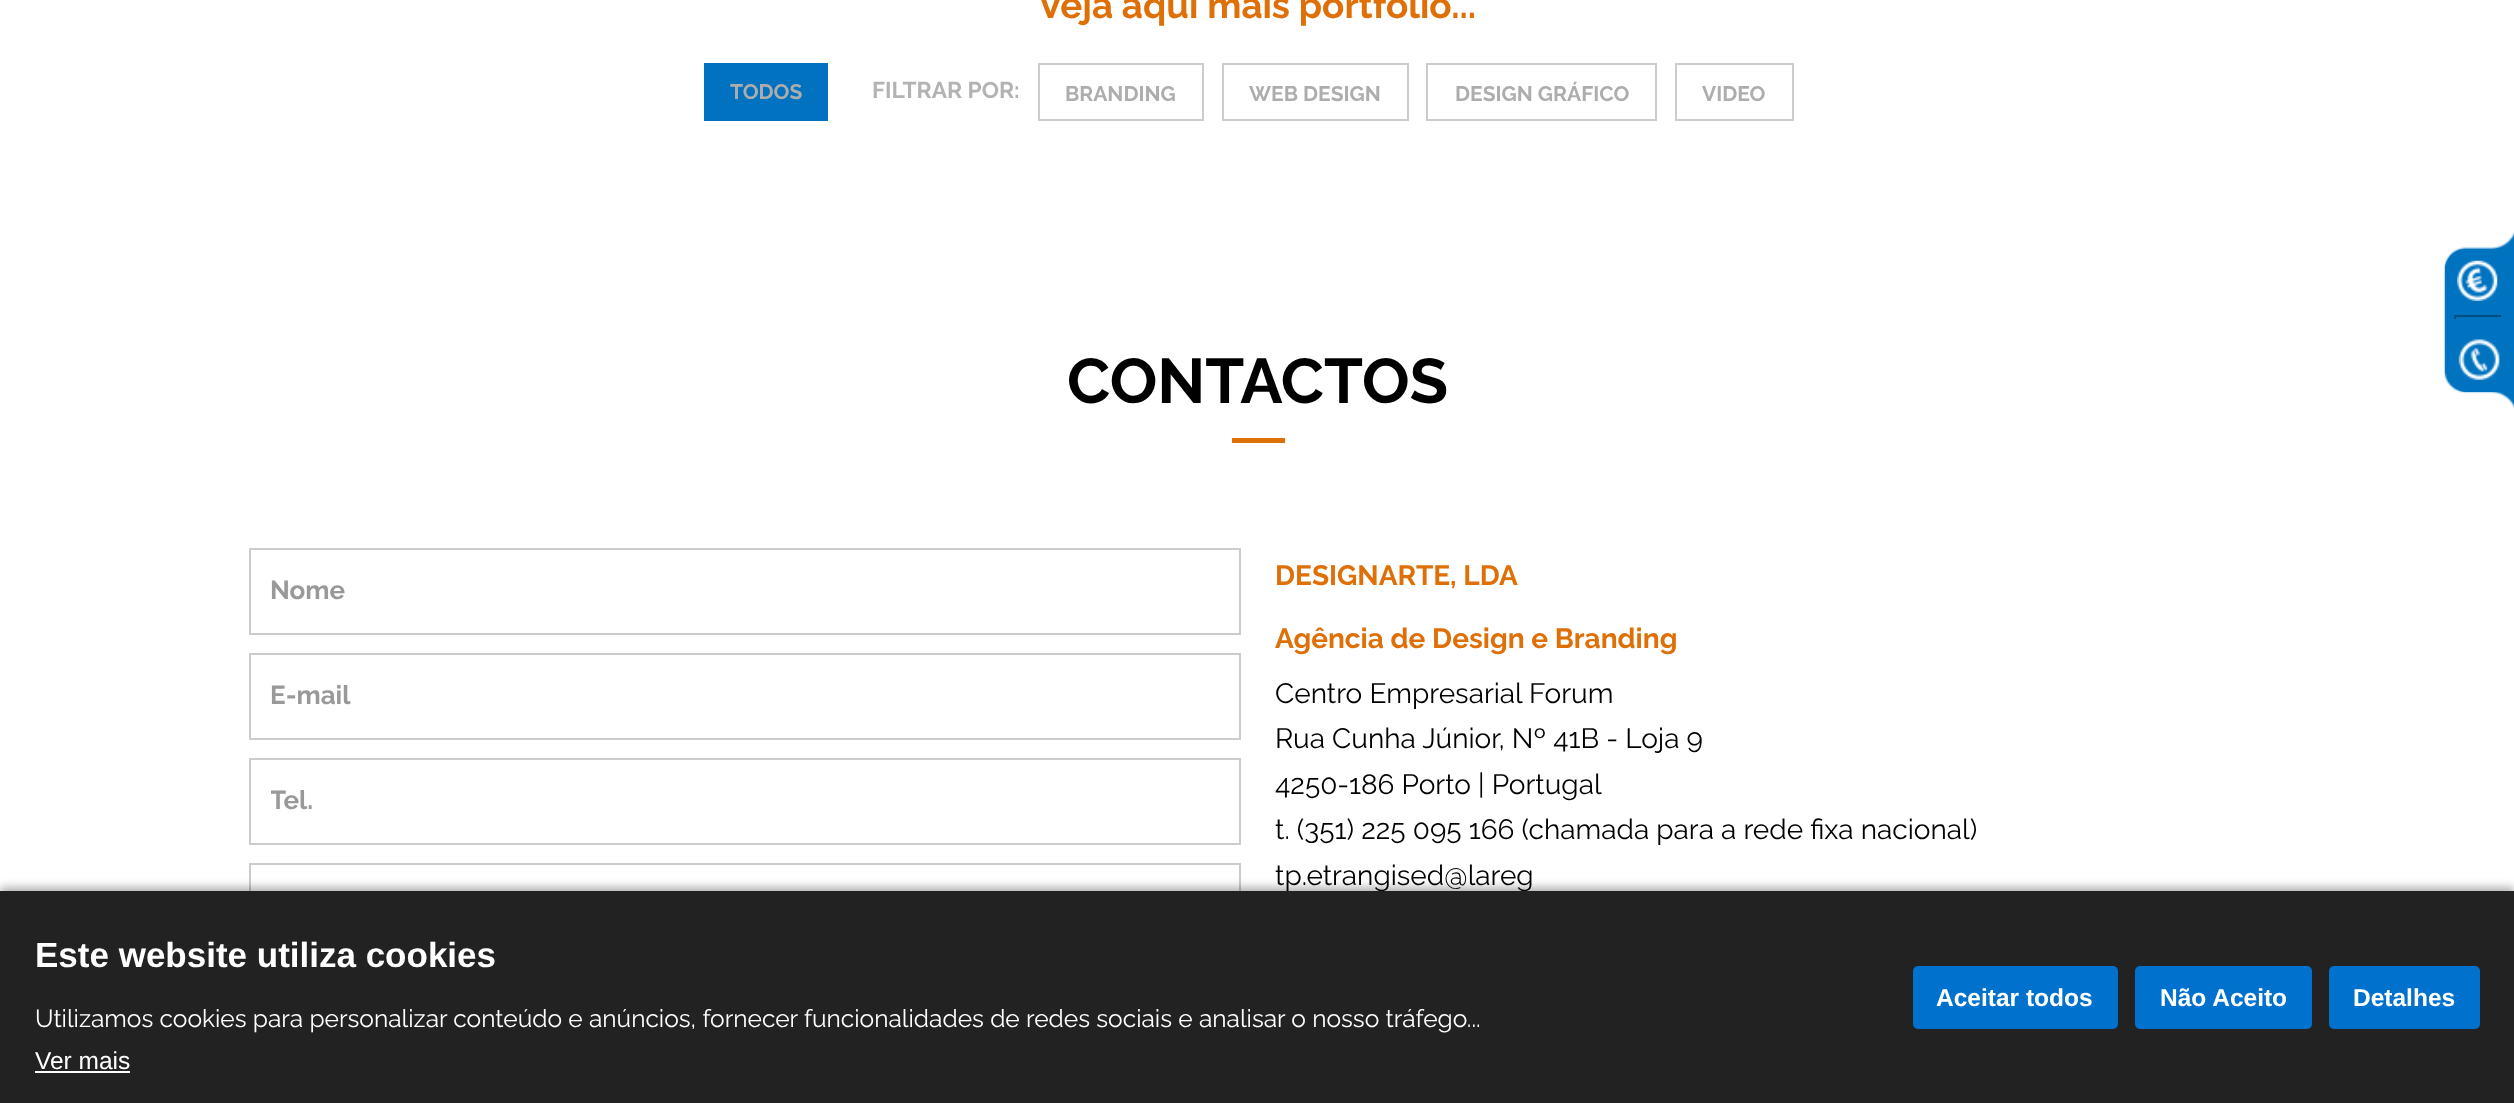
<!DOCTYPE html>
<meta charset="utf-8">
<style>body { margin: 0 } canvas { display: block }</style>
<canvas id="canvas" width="2514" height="1103"></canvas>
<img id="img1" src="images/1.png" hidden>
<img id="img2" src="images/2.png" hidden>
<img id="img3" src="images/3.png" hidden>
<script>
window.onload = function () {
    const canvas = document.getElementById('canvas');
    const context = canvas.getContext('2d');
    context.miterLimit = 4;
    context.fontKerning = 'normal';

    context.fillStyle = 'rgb(255, 255, 255)';
    context.fillRect(0, 0, 2514, 1103);
    context.fillStyle = 'rgb(0, 114, 191)';
    context.fillRect(704, 63, 124, 58);
    context.strokeStyle = 'rgb(204, 204, 204)';
    context.lineWidth = 2;
    context.strokeRect(1039, 64, 164, 56);
    context.strokeRect(1223, 64, 185, 56);
    context.strokeRect(1427, 64, 229, 56);
    context.strokeRect(1676, 64, 117, 56);
    context.fillStyle = 'rgb(222, 112, 8)';
    context.fillRect(1232, 438, 53, 5);
    context.strokeRect(250, 549, 990, 85);
    context.strokeRect(250, 654, 990, 85);
    context.strokeRect(250, 759, 990, 85);
    context.strokeRect(250, 864, 990, 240);
    context.drawImage(document.getElementById('img1'), 2444, 232, 70, 177);
    context.fillStyle = 'rgb(0, 115, 192)';
    context.beginPath();
    context.roundRect(2445, 249, 58, 64, [21, 0, 0, 21]);
    context.fill();
    context.drawImage(document.getElementById('img2'), 2457, 260, 41, 41);
    context.fillStyle = 'rgb(0, 77, 128)';
    context.fillRect(2454, 315, 49, 2);
    context.fillStyle = 'rgb(0, 115, 192)';
    context.fillRect(2501, 315, 2, 4);
    context.fillStyle = 'rgb(0, 77, 128)';
    context.fillRect(2454, 315, 2, 4);
    context.fillStyle = 'rgb(0, 115, 192)';
    context.beginPath();
    context.roundRect(2447, 327, 57, 65, [21, 0, 0, 21]);
    context.fill();
    context.drawImage(document.getElementById('img3'), 2458, 339, 43, 41);
    context.fillStyle = 'rgba(0, 0, 0, 0.3)';
    context.filter = 'blur(4.5px)';
    context.beginPath();
    context.rect(0, 887, 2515, 214);
    context.fill();
    context.filter = 'none';
    context.font = 'bold 36.75px Raleway';
    context.fillStyle = 'rgb(222, 112, 7)';
    context.fillText('Veja aqui mais portfolio...', 1038, 18);
    context.font = 'bold 21px Raleway';
    context.fillStyle = 'rgb(173, 173, 173)';
    context.fillText('TODOS', 730, 99);
    context.font = 'bold 22.75px Raleway';
    context.fillStyle = 'rgb(179, 179, 179)';
    context.fillText('FILTRAR POR:', 872, 98);
    context.font = 'bold 21px Raleway';
    context.fillStyle = 'rgb(173, 173, 173)';
    context.fillText('BRANDING', 1065, 101);
    context.fillText('WEB DESIGN', 1249, 101);
    context.fillText('DESIGN GRÁFICO', 1455, 101);
    context.fillText('VIDEO', 1702, 101);
    context.font = 'bold 63px Raleway';
    context.fillStyle = 'rgb(0, 0, 0)';
    context.fillText('CONTACTOS', 1067, 403);
    context.font = 'bold 26px Raleway';
    context.fillStyle = 'rgb(153, 153, 153)';
    context.fillText('Nome', 270, 599);
    context.fillText('E-mail', 270, 704);
    context.save();
    context.beginPath();
    context.rect(271, 786, 947, 31);
    context.clip();
    context.fillText('Tel.', 270, 809);
    context.restore();
    context.font = 'bold 28px Raleway';
    context.fillStyle = 'rgb(222, 112, 7)';
    context.fillText('DESIGNARTE, LDA', 1275, 585);
    context.fillText('Agência de Design e Branding', 1275, 648);
    context.font = '28px Raleway';
    context.fillStyle = 'rgb(0, 0, 0)';
    context.fillText('Centro Empresarial Forum', 1275, 703);
    context.fillText('Rua Cunha Júnior, Nº 41B - Loja 9', 1275, 748);
    context.fillText('4250-186 Porto | Portugal', 1275, 794);
    context.fillText('t. (351) 225 095 166 (chamada para a rede fixa nacional)', 1275, 839);
    context.fillText('tp.etrangised@lareg', 1275, 885);
    context.fillStyle = 'rgb(34, 34, 34)';
    context.fillRect(0, 891, 2514, 212);
    context.font = 'bold 35px Liberation Sans';
    context.fillStyle = 'rgb(255, 255, 255)';
    context.fillText('Este website utiliza cookies', 35, 967);
    context.font = '24.5px Raleway';
    context.fillText('Utilizamos cookies para personalizar conteúdo e anúncios, fornecer funcionalidades de redes sociais e analisar o nosso tráfego...', 35, 1027);
    context.font = '24.5px Liberation Sans';
    context.fillText('Ver mais', 35, 1069);
    context.fillRect(35, 1071, 95, 2);
    context.fillStyle = 'rgb(0, 114, 206)';
    context.beginPath();
    context.roundRect(1913, 966, 205, 63, 5);
    context.fill();
    context.font = 'bold 24.5px Liberation Sans';
    context.fillStyle = 'rgb(255, 255, 255)';
    context.fillText('Aceitar todos', 1936, 1006);
    context.fillStyle = 'rgb(0, 114, 206)';
    context.beginPath();
    context.roundRect(2135, 966, 177, 63, 5);
    context.fill();
    context.fillStyle = 'rgb(255, 255, 255)';
    context.fillText('Não Aceito', 2160, 1006);
    context.fillStyle = 'rgb(0, 114, 206)';
    context.beginPath();
    context.roundRect(2329, 966, 151, 63, 5);
    context.fill();
    context.fillStyle = 'rgb(255, 255, 255)';
    context.fillText('Detalhes', 2353, 1006);
};
</script>
